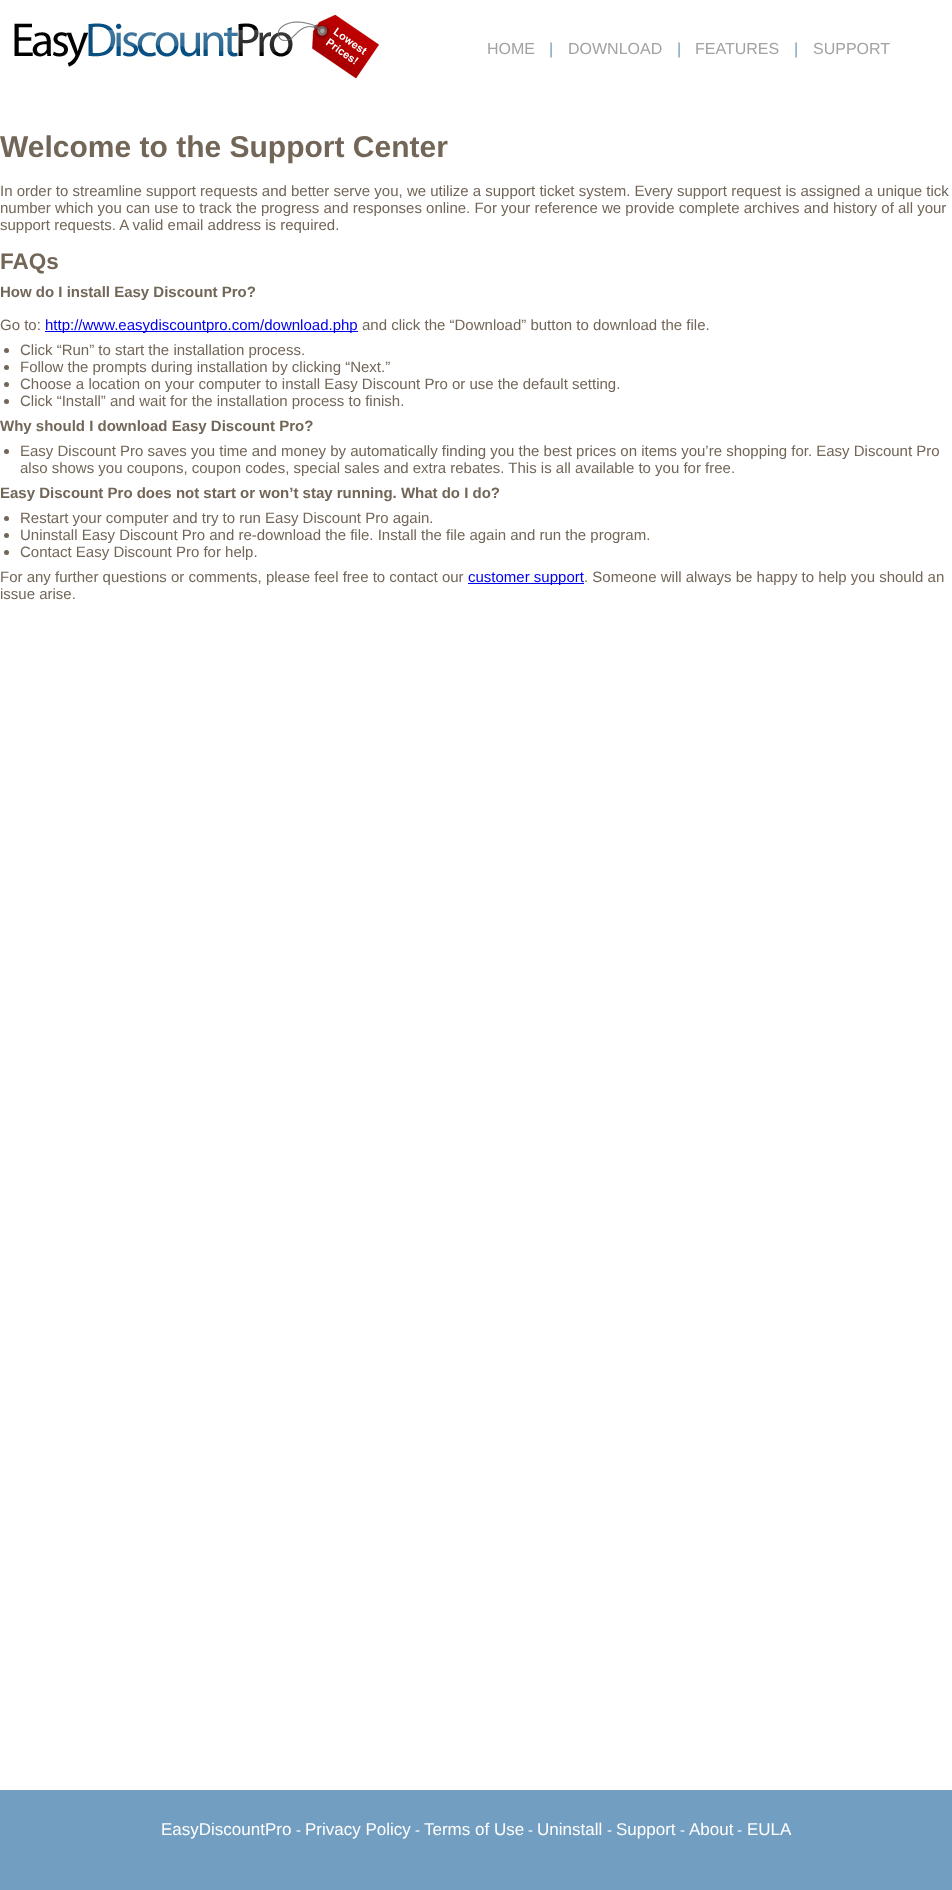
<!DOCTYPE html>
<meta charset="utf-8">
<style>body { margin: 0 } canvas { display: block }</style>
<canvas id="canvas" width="952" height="1890"></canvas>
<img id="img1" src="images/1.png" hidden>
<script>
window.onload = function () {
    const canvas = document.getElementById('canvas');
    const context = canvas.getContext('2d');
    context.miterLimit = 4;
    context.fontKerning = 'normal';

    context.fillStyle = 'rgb(255, 255, 255)';
    context.fillRect(0, 0, 952, 1890);
    context.drawImage(document.getElementById('img1'), 14, 8, 367, 72);
    context.fillStyle = 'rgb(0, 0, 238)';
    context.fillRect(45, 331, 313, 1);
    context.fillStyle = 'rgb(114, 102, 88)';
    context.beginPath();
    context.arc(6.5, 350.5, 2.5, 0, 2 * Math.PI);
    context.fill();
    context.beginPath();
    context.arc(6.5, 367.5, 2.5, 0, 2 * Math.PI);
    context.fill();
    context.beginPath();
    context.arc(6.5, 384.5, 2.5, 0, 2 * Math.PI);
    context.fill();
    context.beginPath();
    context.arc(6.5, 401.5, 2.5, 0, 2 * Math.PI);
    context.fill();
    context.beginPath();
    context.arc(6.5, 451.5, 2.5, 0, 2 * Math.PI);
    context.fill();
    context.beginPath();
    context.arc(6.5, 518.5, 2.5, 0, 2 * Math.PI);
    context.fill();
    context.beginPath();
    context.arc(6.5, 535.5, 2.5, 0, 2 * Math.PI);
    context.fill();
    context.beginPath();
    context.arc(6.5, 552.5, 2.5, 0, 2 * Math.PI);
    context.fill();
    context.fillStyle = 'rgb(0, 0, 238)';
    context.fillRect(468, 583, 116, 1);
    context.fillStyle = 'rgb(114, 158, 193)';
    context.fillRect(0, 1790, 952, 100);
    context.font = '16px Liberation Sans';
    context.fillStyle = 'rgb(162, 162, 162)';
    context.fillText('HOME', 487, 54);
    context.fillStyle = 'rgb(114, 159, 193)';
    context.fillText('|', 549, 54);
    context.fillStyle = 'rgb(162, 162, 162)';
    context.fillText('DOWNLOAD', 568, 54);
    context.fillStyle = 'rgb(114, 159, 193)';
    context.fillText('|', 677, 54);
    context.fillStyle = 'rgb(162, 162, 162)';
    context.fillText('FEATURES', 695, 54);
    context.fillStyle = 'rgb(114, 159, 193)';
    context.fillText('|', 794, 54);
    context.fillStyle = 'rgb(162, 162, 162)';
    context.fillText('SUPPORT', 813, 54);
    context.font = 'bold 30px Liberation Sans';
    context.fillStyle = 'rgb(114, 102, 88)';
    context.fillText('Welcome to the Support Center', 0, 157);
    context.font = '15px Liberation Sans';
    context.fillText('In order to streamline support requests and better serve you, we utilize a support ticket system. Every support request is assigned a unique tick', 0, 196);
    context.fillText('number which you can use to track the progress and responses online. For your reference we provide complete archives and history of all your', 0, 213);
    context.fillText('support requests. A valid email address is required.', 0, 230);
    context.font = 'bold 22.5px Liberation Sans';
    context.fillText('FAQs', 0, 269);
    context.font = 'bold 15px Liberation Sans';
    context.fillText('How do I install Easy Discount Pro?', 0, 297);
    context.font = '15px Liberation Sans';
    context.fillText('Go to:', 0, 330);
    context.fillStyle = 'rgb(0, 0, 238)';
    context.fillText('http://www.easydiscountpro.com/download.php', 45, 330);
    context.fillStyle = 'rgb(114, 102, 88)';
    context.fillText('and click the “Download” button to download the file.', 362, 330);
    context.fillText('Click “Run” to start the installation process.', 20, 355);
    context.fillText('Follow the prompts during installation by clicking “Next.”', 20, 372);
    context.fillText('Choose a location on your computer to install Easy Discount Pro or use the default setting.', 20, 389);
    context.fillText('Click “Install” and wait for the installation process to finish.', 20, 406);
    context.font = 'bold 15px Liberation Sans';
    context.fillText('Why should I download Easy Discount Pro?', 0, 431);
    context.font = '15px Liberation Sans';
    context.fillText('Easy Discount Pro saves you time and money by automatically finding you the best prices on items you’re shopping for. Easy Discount Pro', 20, 456);
    context.fillText('also shows you coupons, coupon codes, special sales and extra rebates. This is all available to you for free.', 20, 473);
    context.font = 'bold 15px Liberation Sans';
    context.fillText('Easy Discount Pro does not start or won’t stay running. What do I do?', 0, 498);
    context.font = '15px Liberation Sans';
    context.fillText('Restart your computer and try to run Easy Discount Pro again.', 20, 523);
    context.fillText('Uninstall Easy Discount Pro and re-download the file. Install the file again and run the program.', 20, 540);
    context.fillText('Contact Easy Discount Pro for help.', 20, 557);
    context.fillText('For any further questions or comments, please feel free to contact our', 0, 582);
    context.fillStyle = 'rgb(0, 0, 238)';
    context.fillText('customer support', 468, 582);
    context.fillStyle = 'rgb(114, 102, 88)';
    context.fillText('. Someone will always be happy to help you should an', 584, 582);
    context.fillText('issue arise.', 0, 599);
    context.font = '17px Liberation Sans';
    context.fillStyle = 'rgb(255, 255, 255)';
    context.fillText('EasyDiscountPro', 161, 1835);
    context.font = '15px Liberation Sans';
    context.fillText('-', 296, 1835);
    context.font = '17px Liberation Sans';
    context.fillText('Privacy Policy', 305, 1835);
    context.font = '15px Liberation Sans';
    context.fillText('-', 415, 1835);
    context.font = '17px Liberation Sans';
    context.fillText('Terms of Use', 424, 1835);
    context.font = '15px Liberation Sans';
    context.fillText('-', 528, 1835);
    context.font = '17px Liberation Sans';
    context.fillText('Uninstall', 537, 1835);
    context.font = '15px Liberation Sans';
    context.fillText('-', 607, 1835);
    context.font = '17px Liberation Sans';
    context.fillText('Support', 616, 1835);
    context.font = '15px Liberation Sans';
    context.fillText('-', 680, 1835);
    context.font = '17px Liberation Sans';
    context.fillText('About', 689, 1835);
    context.font = '15px Liberation Sans';
    context.fillText('-', 737, 1835);
    context.font = '17px Liberation Sans';
    context.fillText('EULA', 747, 1835);
};
</script>
